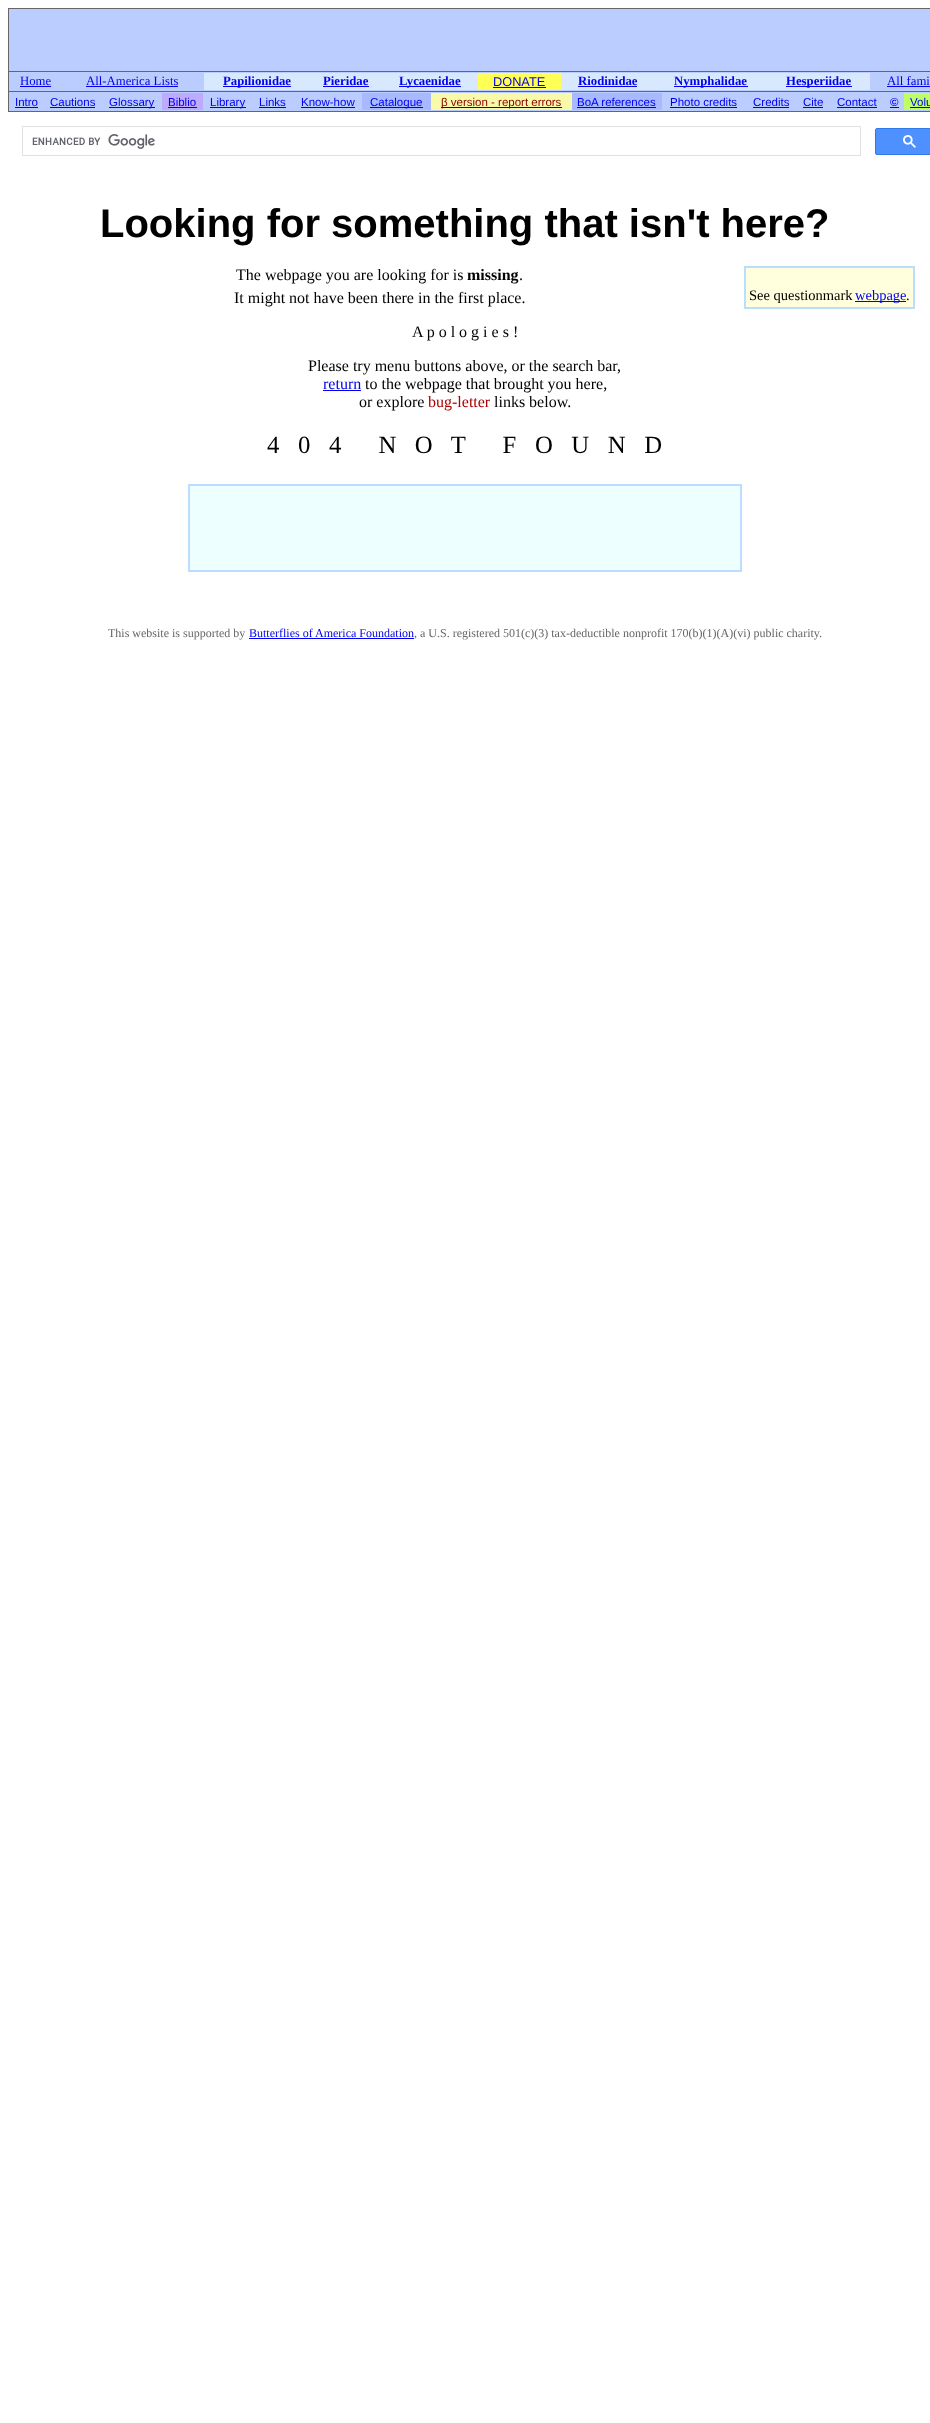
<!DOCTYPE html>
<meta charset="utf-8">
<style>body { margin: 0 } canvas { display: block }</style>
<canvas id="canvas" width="930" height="2423"></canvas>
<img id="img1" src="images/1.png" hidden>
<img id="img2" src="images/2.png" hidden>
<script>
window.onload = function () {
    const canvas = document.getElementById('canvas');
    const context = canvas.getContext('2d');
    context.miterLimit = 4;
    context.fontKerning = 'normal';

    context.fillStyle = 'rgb(255, 255, 255)';
    context.fillRect(0, 0, 930, 2423);
    context.fillStyle = 'rgb(187, 204, 255)';
    context.fillRect(9, 9, 921, 102);
    context.fillStyle = 'rgb(102, 102, 102)';
    context.fillRect(8, 8, 922, 1);
    context.fillRect(8, 111, 922, 1);
    context.fillRect(8, 8, 1, 104);
    context.fillRect(8, 71, 922, 1);
    context.fillStyle = 'rgb(0, 0, 238)';
    context.fillRect(20, 86, 31, 1);
    context.fillRect(86, 86, 92, 1);
    context.fillStyle = 'rgb(216, 232, 255)';
    context.fillRect(204, 73, 274, 17);
    context.fillStyle = 'rgb(0, 0, 238)';
    context.fillRect(223, 86, 68, 1);
    context.fillRect(323, 86, 46, 1);
    context.fillRect(399, 86, 62, 1);
    context.fillStyle = 'rgb(255, 255, 85)';
    context.fillRect(478, 73, 83, 17);
    context.fillStyle = 'rgb(0, 0, 238)';
    context.fillRect(493, 87, 53, 1);
    context.fillStyle = 'rgb(216, 232, 255)';
    context.fillRect(561, 73, 309, 17);
    context.fillStyle = 'rgb(0, 0, 238)';
    context.fillRect(578, 86, 59, 1);
    context.fillRect(674, 86, 74, 1);
    context.fillRect(786, 86, 66, 1);
    context.fillRect(887, 86, 43, 1);
    context.fillStyle = 'rgb(102, 102, 102)';
    context.fillRect(8, 91, 922, 1);
    context.fillStyle = 'rgb(0, 0, 238)';
    context.fillRect(15, 107, 23, 1);
    context.fillRect(50, 107, 45, 1);
    context.fillRect(109, 107, 46, 1);
    context.fillStyle = 'rgb(190, 170, 255)';
    context.fillRect(162, 93, 41, 17);
    context.fillStyle = 'rgb(0, 0, 238)';
    context.fillRect(168, 107, 29, 1);
    context.fillRect(210, 107, 36, 1);
    context.fillRect(259, 107, 27, 1);
    context.fillRect(301, 107, 54, 1);
    context.fillStyle = 'rgb(168, 185, 255)';
    context.fillRect(362, 93, 69, 17);
    context.fillStyle = 'rgb(0, 0, 238)';
    context.fillRect(370, 107, 53, 1);
    context.fillStyle = 'rgb(249, 249, 170)';
    context.fillRect(431, 93, 141, 17);
    context.fillStyle = 'rgb(0, 0, 238)';
    context.fillRect(441, 107, 121, 1);
    context.fillStyle = 'rgb(168, 185, 255)';
    context.fillRect(572, 93, 90, 17);
    context.fillStyle = 'rgb(0, 0, 238)';
    context.fillRect(577, 107, 79, 1);
    context.fillRect(670, 107, 67, 1);
    context.fillRect(753, 107, 36, 1);
    context.fillRect(803, 107, 20, 1);
    context.fillRect(837, 107, 40, 1);
    context.fillRect(890, 107, 9, 1);
    context.fillStyle = 'rgb(190, 255, 102)';
    context.fillRect(904, 93, 26, 17);
    context.fillStyle = 'rgb(0, 0, 238)';
    context.fillRect(910, 107, 20, 1);
    context.strokeStyle = 'rgb(223, 225, 229)';
    context.strokeRect(22.5, 126.5, 838, 29);
    context.drawImage(document.getElementById('img1'), 32, 134, 123, 15);
    context.fillStyle = 'rgb(77, 144, 254)';
    context.beginPath();
    context.roundRect(875.5, 128.5, 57, 26, 1.5);
    context.fill();
    context.strokeStyle = 'rgb(48, 121, 237)';
    context.stroke();
    context.drawImage(document.getElementById('img2'), 903, 135, 13, 13);
    context.fillStyle = 'rgb(255, 255, 221)';
    context.beginPath();
    context.rect(745, 267, 169, 41);
    context.fill();
    context.strokeStyle = 'rgb(187, 221, 255)';
    context.lineWidth = 2;
    context.stroke();
    context.fillStyle = 'rgb(0, 0, 238)';
    context.fillRect(855, 301, 51, 1);
    context.fillRect(323, 390, 38, 1);
    context.fillStyle = 'rgb(238, 255, 255)';
    context.beginPath();
    context.rect(189, 485, 552, 86);
    context.fill();
    context.stroke();
    context.fillStyle = 'rgb(0, 0, 238)';
    context.fillRect(249, 638, 165, 1);
    context.font = '12.75px Liberation Serif';
    context.fillText('Home', 20, 85);
    context.fillText('All-America Lists', 86, 85);
    context.font = 'bold 12.75px Liberation Serif';
    context.fillText('Papilionidae', 223, 85);
    context.fillText('Pieridae', 323, 85);
    context.fillText('Lycaenidae', 399, 85);
    context.font = '12.75px Liberation Sans';
    context.fillText('DONATE', 493, 86);
    context.font = 'bold 12.75px Liberation Serif';
    context.fillText('Riodinidae', 578, 85);
    context.fillText('Nymphalidae', 674, 85);
    context.fillText('Hesperiidae', 786, 85);
    context.font = '12.75px Liberation Serif';
    context.fillText('All fami', 887, 85);
    context.font = '11.5px Liberation Sans';
    context.fillText('Intro', 15, 106);
    context.fillText('Cautions', 50, 106);
    context.fillText('Glossary', 109, 106);
    context.fillText('Biblio', 168, 106);
    context.fillText('Library', 210, 106);
    context.fillText('Links', 259, 106);
    context.fillText('Know-how', 301, 106);
    context.fillText('Catalogue', 370, 106);
    context.fillStyle = 'rgb(136, 0, 0)';
    context.fillText('β version - report errors', 441, 106);
    context.fillStyle = 'rgb(0, 0, 238)';
    context.fillText('BoA references', 577, 106);
    context.fillText('Photo credits', 670, 106);
    context.fillText('Credits', 753, 106);
    context.fillText('Cite', 803, 106);
    context.fillText('Contact', 837, 106);
    context.font = 'bold 11.5px Liberation Sans';
    context.fillText('©', 890, 106);
    context.font = '11.5px Liberation Sans';
    context.fillText('Volu', 910, 106);
    context.font = 'bold 40px Liberation Sans';
    context.fillStyle = 'rgb(0, 0, 0)';
    context.fillText('Looking for something that isn\'t here?', 100, 237);
    context.font = '16px Liberation Serif';
    context.fillText('The webpage you are looking for is', 236, 280);
    context.font = 'bold 16px Liberation Serif';
    context.fillText('missing', 467, 280);
    context.font = '16px Liberation Serif';
    context.fillText('.', 519, 280);
    context.fillText('It might not have been there in the first place.', 234, 303);
    context.font = '14.5px Liberation Serif';
    context.fillText('See questionmark', 749, 300);
    context.fillStyle = 'rgb(0, 0, 238)';
    context.fillText('webpage', 855, 300);
    context.fillStyle = 'rgb(0, 0, 0)';
    context.fillText('.', 906, 300);
    context.font = '16px Liberation Serif';
    context.fillText('A p o l o g i e s !', 412, 337);
    context.fillText('Please try menu buttons above, or the search bar,', 308, 371);
    context.fillStyle = 'rgb(0, 0, 238)';
    context.fillText('return', 323, 389);
    context.fillStyle = 'rgb(0, 0, 0)';
    context.fillText('to the webpage that brought you here,', 365, 389);
    context.fillText('or explore', 359, 407);
    context.fillStyle = 'rgb(170, 0, 0)';
    context.fillText('bug-letter', 428, 407);
    context.fillStyle = 'rgb(0, 0, 0)';
    context.fillText('links below.', 494, 407);
    context.font = '24.75px Liberation Serif';
    context.fillText('4   0   4      N   O   T      F   O   U   N   D', 267, 453);
    context.font = '12px Liberation Serif';
    context.fillStyle = 'rgb(102, 102, 102)';
    context.fillText('This website is supported by', 108, 637);
    context.fillStyle = 'rgb(0, 0, 238)';
    context.fillText('Butterflies of America Foundation', 249, 637);
    context.fillStyle = 'rgb(102, 102, 102)';
    context.fillText(', a U.S. registered 501(c)(3) tax-deductible nonprofit 170(b)(1)(A)(vi) public charity.', 414, 637);
};
</script>
